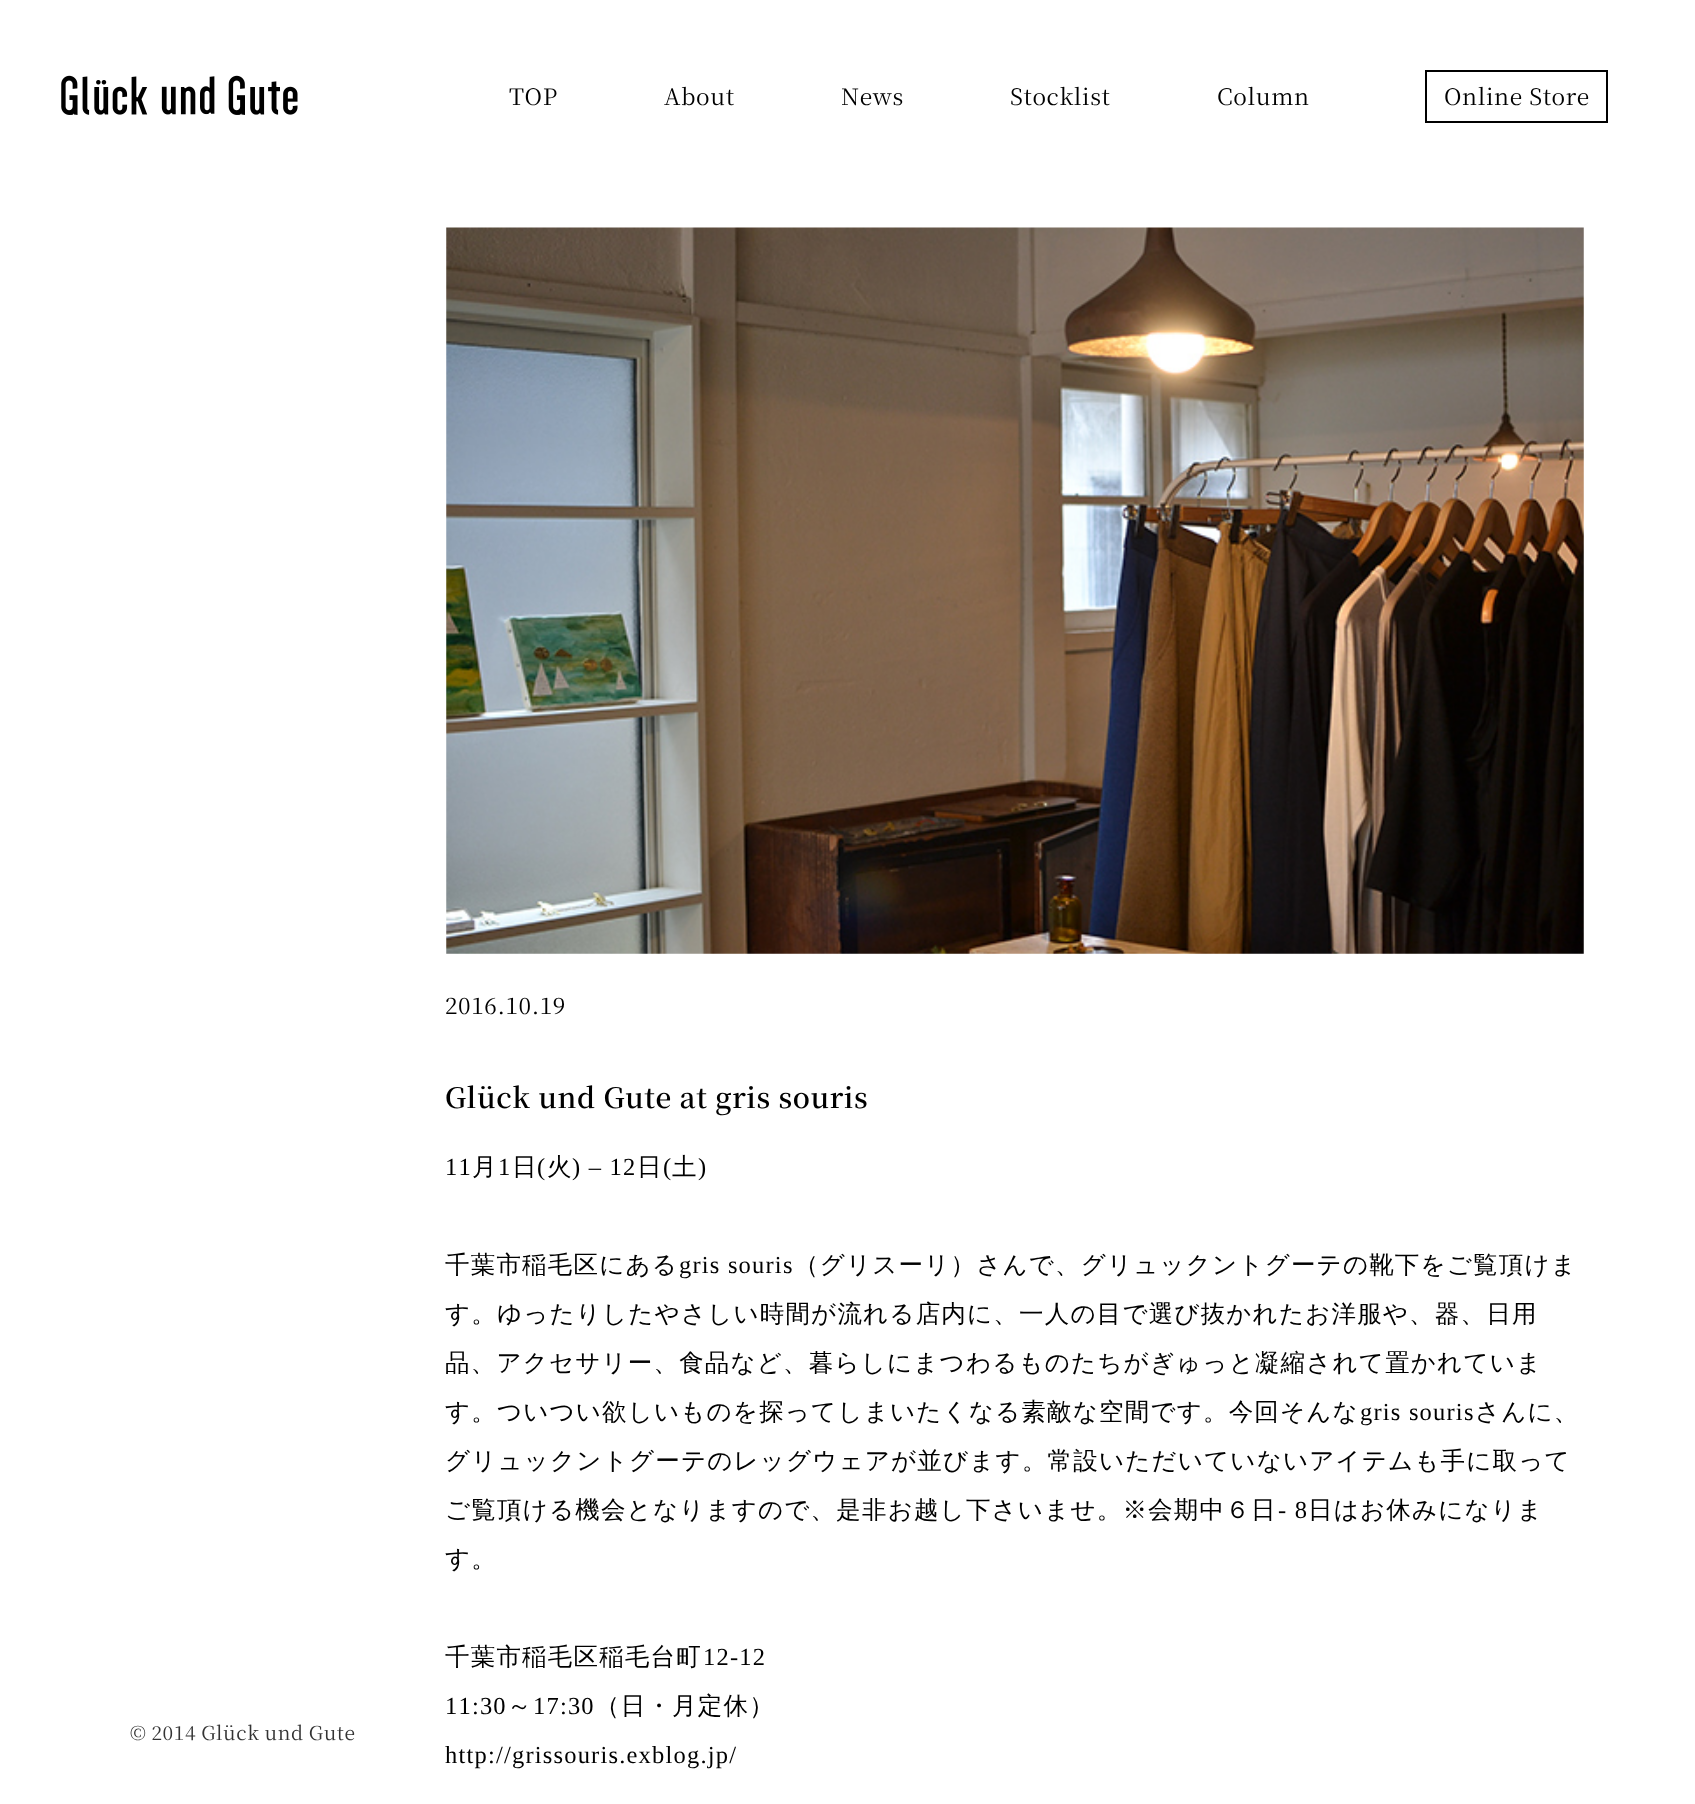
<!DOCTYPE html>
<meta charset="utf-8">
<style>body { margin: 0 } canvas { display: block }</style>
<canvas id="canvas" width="1695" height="1804"></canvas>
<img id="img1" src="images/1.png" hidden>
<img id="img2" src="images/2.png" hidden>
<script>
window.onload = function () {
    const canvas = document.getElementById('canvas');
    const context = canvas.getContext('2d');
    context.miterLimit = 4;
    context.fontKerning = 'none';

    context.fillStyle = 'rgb(255, 255, 255)';
    context.fillRect(0, 0, 1695, 1804);
    context.drawImage(document.getElementById('img1'), 61, 75, 237, 40);
    context.strokeStyle = 'rgb(0, 0, 0)';
    context.lineWidth = 2;
    context.strokeRect(1426, 71, 181, 51);
    context.drawImage(document.getElementById('img2'), 446, 227, 1138, 727);
    context.letterSpacing = '0.6px';
    context.font = '22.75px Noto Serif JP';
    context.fillStyle = 'rgb(0, 0, 0)';
    context.fillText('TOP', 509, 105);
    context.fillText('About', 664, 105);
    context.fillText('News', 841, 105);
    context.fillText('Stocklist', 1010, 105);
    context.fillText('Column', 1217, 105);
    context.fillText('Online Store', 1444, 105);
    context.wordSpacing = '-0.5px';
    context.font = '19.25px Noto Serif JP';
    context.fillStyle = 'rgb(51, 51, 51)';
    context.fillText('© 2014 Glück und Gute', 130, 1740);
    context.wordSpacing = '0px';
    context.font = '22.75px Noto Serif JP';
    context.fillStyle = 'rgb(0, 0, 0)';
    context.fillText('2016.10.19', 445, 1014);
    context.font = '600 28px Noto Serif JP';
    context.fillText('Glück und Gute at gris souris', 445, 1108);
    context.letterSpacing = '1.2px';
    context.font = '24.5px Liberation Serif';
    context.fillText('11', 445, 1175);
    context.font = '500 24.5px WenQuanYi Zen Hei';
    context.fillText('月', 472, 1175);
    context.font = '24.5px Liberation Serif';
    context.fillText('1', 498, 1175);
    context.font = '500 24.5px WenQuanYi Zen Hei';
    context.fillText('日', 512, 1175);
    context.font = '24.5px Liberation Serif';
    context.fillText('(', 537, 1175);
    context.font = '500 24.5px WenQuanYi Zen Hei';
    context.fillText('火', 547, 1175);
    context.font = '24.5px Liberation Serif';
    context.fillText(') – 12', 572, 1175);
    context.font = '500 24.5px WenQuanYi Zen Hei';
    context.fillText('日', 637, 1175);
    context.font = '24.5px Liberation Serif';
    context.fillText('(', 663, 1175);
    context.font = '500 24.5px WenQuanYi Zen Hei';
    context.fillText('土', 672, 1175);
    context.font = '24.5px Liberation Serif';
    context.fillText(')', 698, 1175);
    context.font = '500 24.5px WenQuanYi Zen Hei';
    context.fillText('千葉市稲毛区にある', 445, 1273);
    context.font = '24.5px Liberation Serif';
    context.fillText('gris souris', 679, 1273);
    context.font = '500 24.5px WenQuanYi Zen Hei';
    context.fillText('（グリスーリ）さんで、グリュックントグーテの靴下をご覧頂けま', 794, 1273);
    context.fillText('す。ゆったりしたやさしい時間が流れる店内に、一人の目で選び抜かれたお洋服や、器、日用', 445, 1322);
    context.fillText('品、アクセサリー、食品など、暮らしにまつわるものたちがぎゅっと凝縮されて置かれていま', 445, 1371);
    context.fillText('す。ついつい欲しいものを探ってしまいたくなる素敵な空間です。今回そんな', 445, 1420);
    context.font = '24.5px Liberation Serif';
    context.fillText('gris souris', 1360, 1420);
    context.font = '500 24.5px WenQuanYi Zen Hei';
    context.fillText('さんに、', 1475, 1420);
    context.fillText('グリュックントグーテのレッグウェアが並びます。常設いただいていないアイテムも手に取って', 445, 1469);
    context.fillText('ご覧頂ける機会となりますので、是非お越し下さいませ。※会期中６日', 445, 1518);
    context.font = '24.5px Liberation Serif';
    context.fillText('- 8', 1278, 1518);
    context.font = '500 24.5px WenQuanYi Zen Hei';
    context.fillText('日はお休みになりま', 1308, 1518);
    context.fillText('す。', 445, 1567);
    context.fillText('千葉市稲毛区稲毛台町', 445, 1665);
    context.font = '24.5px Liberation Serif';
    context.fillText('12-12', 703, 1665);
    context.fillText('11:30', 445, 1714);
    context.font = '500 24.5px WenQuanYi Zen Hei';
    context.fillText('～', 507, 1714);
    context.font = '24.5px Liberation Serif';
    context.fillText('17:30', 533, 1714);
    context.font = '500 24.5px WenQuanYi Zen Hei';
    context.fillText('（日・月定休）', 595, 1714);
    context.font = '24.5px Liberation Serif';
    context.fillText('http://grissouris.exblog.jp/', 445, 1763);
};
</script>
